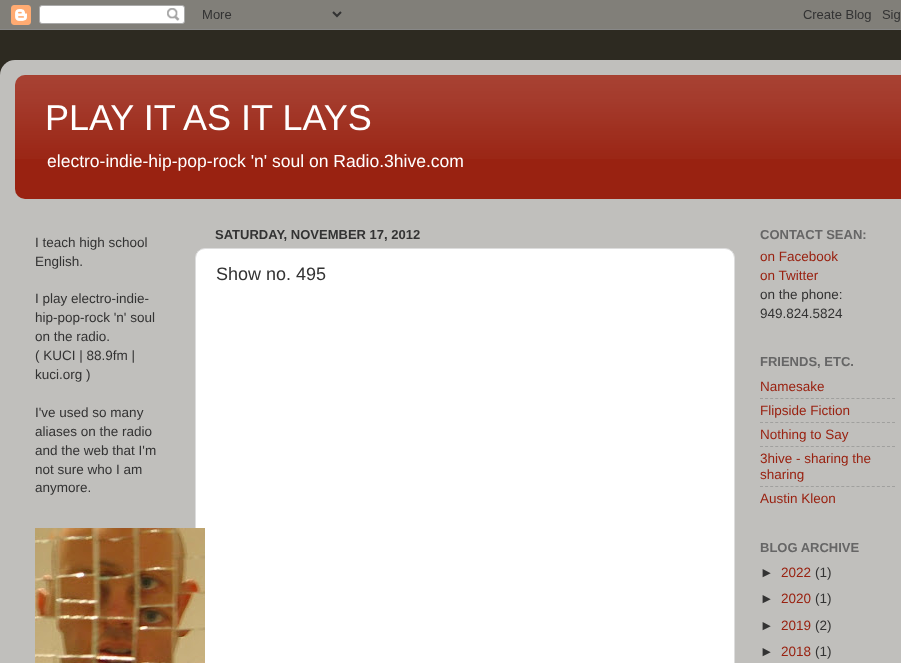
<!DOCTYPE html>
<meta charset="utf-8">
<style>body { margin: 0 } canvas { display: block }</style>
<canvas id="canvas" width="901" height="663"></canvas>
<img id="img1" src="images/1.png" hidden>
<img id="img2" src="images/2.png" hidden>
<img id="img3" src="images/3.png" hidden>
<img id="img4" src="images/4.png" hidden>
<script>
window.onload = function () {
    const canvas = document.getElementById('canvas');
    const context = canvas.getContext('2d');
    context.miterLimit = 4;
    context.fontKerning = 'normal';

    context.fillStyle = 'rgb(45, 42, 33)';
    context.fillRect(0, 0, 901, 663);
    context.drawImage(document.getElementById('img1'), 0, 0, 901, 30);
    context.drawImage(document.getElementById('img2'), 0, 60, 901, 603);
    context.fillStyle = 'rgb(153, 34, 17)';
    context.beginPath();
    context.roundRect(15, 75, 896, 124, 10);
    context.fill();
    context.drawImage(document.getElementById('img3'), 15, 75, 886, 84);
    context.fillStyle = 'rgb(255, 255, 255)';
    context.beginPath();
    context.roundRect(195.5, 248.5, 539, 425, 9.5);
    context.fill();
    context.strokeStyle = 'rgb(221, 221, 221)';
    context.stroke();
    context.drawImage(document.getElementById('img4'), 35, 528, 170, 135);
    context.beginPath();
    context.moveTo(760, 398.5);
    context.lineTo(895, 398.5);
    context.strokeStyle = 'rgb(160, 160, 158)';
    context.setLineDash([3, 2.08]);
    context.stroke();
    context.beginPath();
    context.moveTo(760, 422.5);
    context.lineTo(895, 422.5);
    context.stroke();
    context.beginPath();
    context.moveTo(760, 446.5);
    context.lineTo(895, 446.5);
    context.stroke();
    context.beginPath();
    context.moveTo(760, 486.5);
    context.lineTo(895, 486.5);
    context.stroke();
    context.font = '36px Liberation Sans';
    context.fillText('PLAY IT AS IT LAYS', 45, 130);
    context.font = '17.55px Liberation Sans';
    context.fillText('electro-indie-hip-pop-rock \'n\' soul on Radio.3hive.com', 47, 167);
    context.font = '13.5px Liberation Sans';
    context.fillStyle = 'rgb(51, 51, 51)';
    context.fillText('I teach high school', 35, 247);
    context.fillText('English.', 35, 266);
    context.fillText('I play electro-indie-', 35, 303);
    context.fillText('hip-pop-rock \'n\' soul', 35, 322);
    context.fillText('on the radio.', 35, 341);
    context.fillText('( KUCI | 88.9fm |', 35, 360);
    context.fillText('kuci.org )', 35, 379);
    context.fillText('I\'ve used so many', 35, 417);
    context.fillText('aliases on the radio', 35, 436);
    context.fillText('and the web that I\'m', 35, 455);
    context.fillText('not sure who I am', 35, 474);
    context.fillText('anymore.', 35, 492);
    context.font = 'bold 13px Liberation Sans';
    context.fillText('SATURDAY, NOVEMBER 17, 2012', 215, 239);
    context.font = '18px Liberation Sans';
    context.fillText('Show no. 495', 216, 280);
    context.font = 'bold 13px Liberation Sans';
    context.fillStyle = 'rgb(102, 102, 102)';
    context.fillText('CONTACT SEAN:', 760, 239);
    context.font = '13.5px Liberation Sans';
    context.fillStyle = 'rgb(153, 34, 17)';
    context.fillText('on Facebook', 760, 261);
    context.fillText('on Twitter', 760, 280);
    context.fillStyle = 'rgb(51, 51, 51)';
    context.fillText('on the phone:', 760, 299);
    context.fillText('949.824.5824', 760, 318);
    context.font = 'bold 13px Liberation Sans';
    context.fillStyle = 'rgb(102, 102, 102)';
    context.fillText('FRIENDS, ETC.', 760, 366);
    context.font = '13.5px Liberation Sans';
    context.fillStyle = 'rgb(153, 34, 17)';
    context.fillText('Namesake', 760, 391);
    context.fillText('Flipside Fiction', 760, 415);
    context.fillText('Nothing to Say', 760, 439);
    context.fillText('3hive - sharing the', 760, 463);
    context.fillText('sharing', 760, 479);
    context.fillText('Austin Kleon', 760, 503);
    context.font = 'bold 13px Liberation Sans';
    context.fillStyle = 'rgb(102, 102, 102)';
    context.fillText('BLOG ARCHIVE', 760, 552);
    context.font = '13.5px Liberation Sans';
    context.fillStyle = 'rgb(51, 51, 51)';
    context.fillText('►', 760, 577);
    context.fillStyle = 'rgb(153, 34, 17)';
    context.fillText('2022', 781, 577);
    context.fillStyle = 'rgb(51, 51, 51)';
    context.fillText('(1)', 815, 577);
    context.fillText('►', 760, 603);
    context.fillStyle = 'rgb(153, 34, 17)';
    context.fillText('2020', 781, 603);
    context.fillStyle = 'rgb(51, 51, 51)';
    context.fillText('(1)', 815, 603);
    context.fillText('►', 760, 630);
    context.fillStyle = 'rgb(153, 34, 17)';
    context.fillText('2019', 781, 630);
    context.fillStyle = 'rgb(51, 51, 51)';
    context.fillText('(2)', 815, 630);
    context.fillText('►', 760, 656);
    context.fillStyle = 'rgb(153, 34, 17)';
    context.fillText('2018', 781, 656);
    context.fillStyle = 'rgb(51, 51, 51)';
    context.fillText('(1)', 815, 656);
};
</script>
